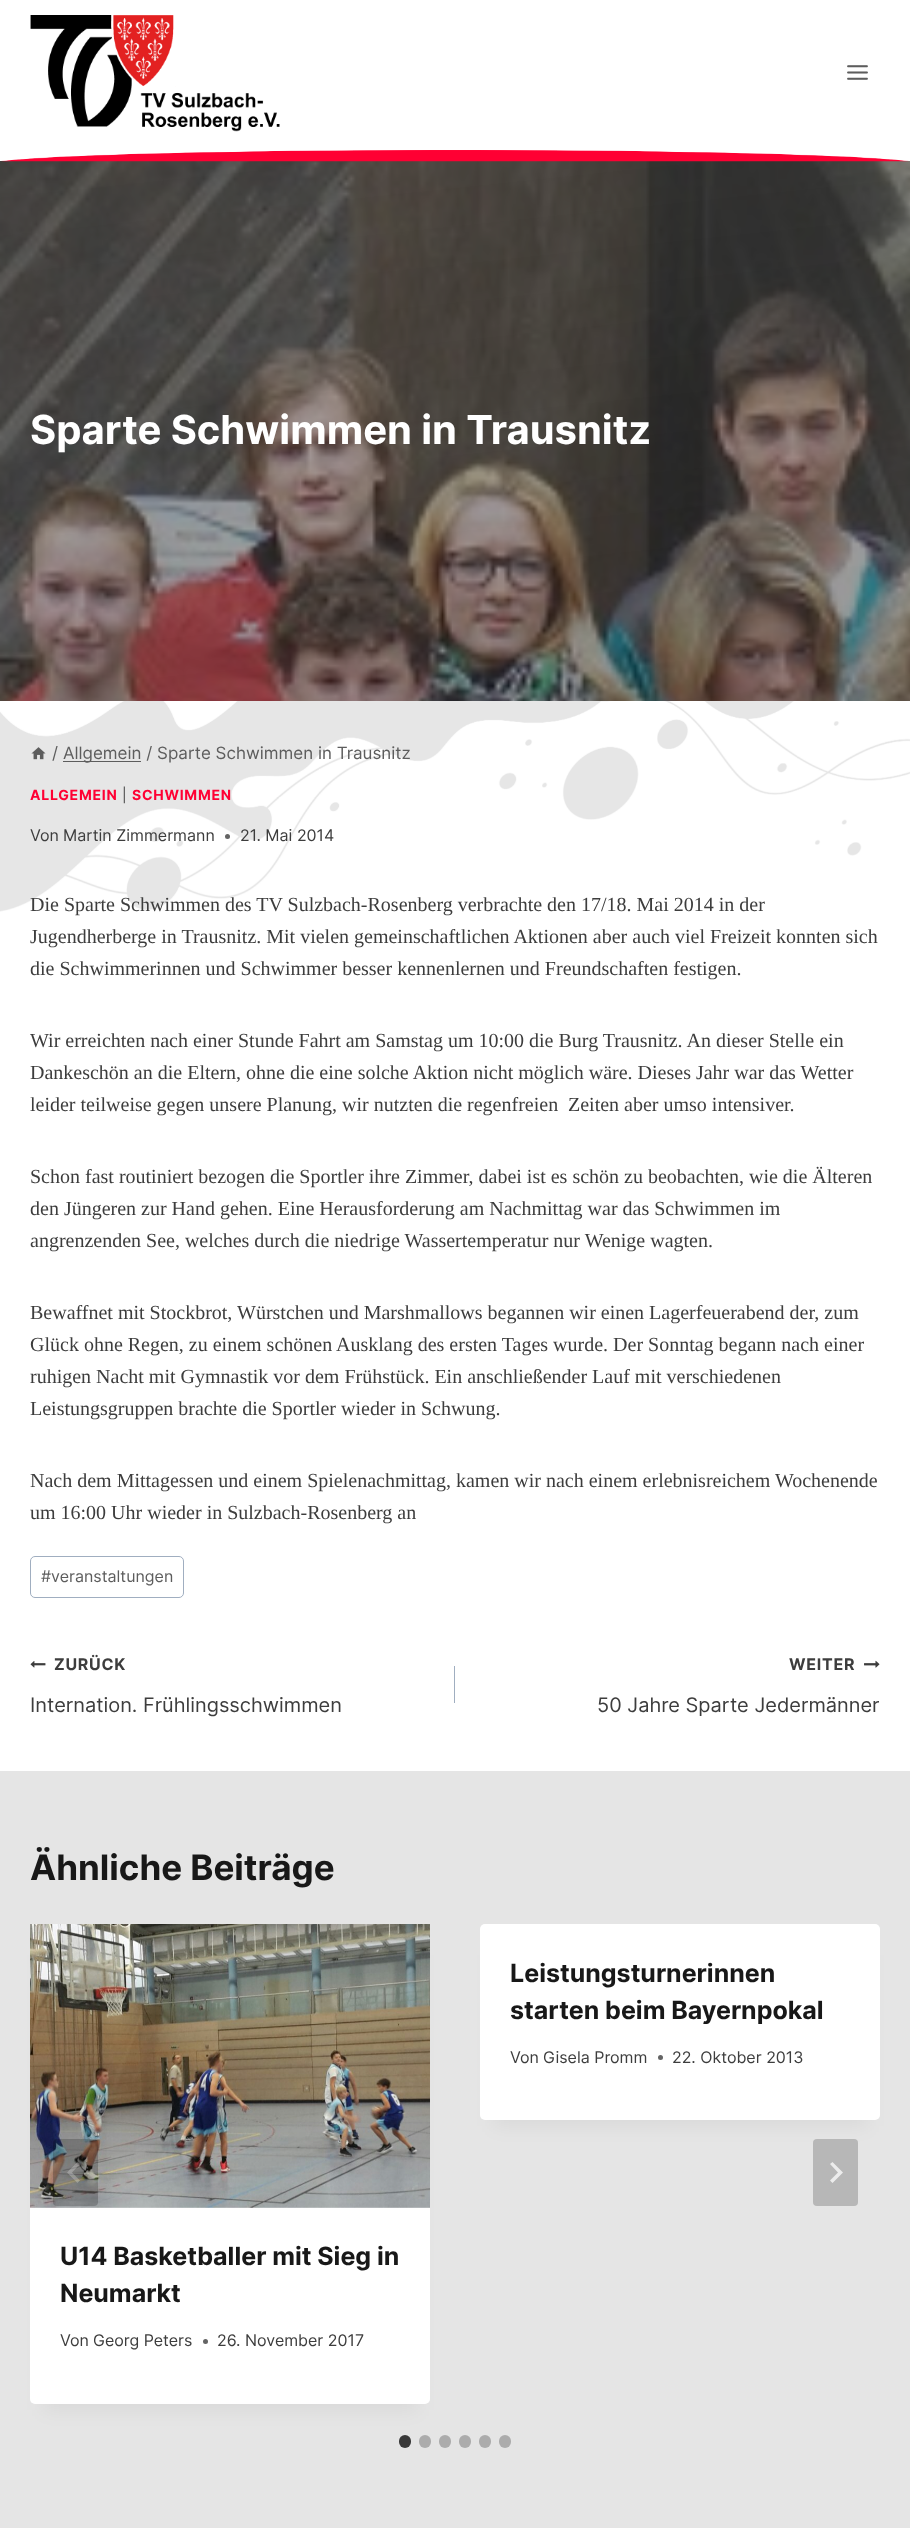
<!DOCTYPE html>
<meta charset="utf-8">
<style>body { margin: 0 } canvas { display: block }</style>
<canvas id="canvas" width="910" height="2528"></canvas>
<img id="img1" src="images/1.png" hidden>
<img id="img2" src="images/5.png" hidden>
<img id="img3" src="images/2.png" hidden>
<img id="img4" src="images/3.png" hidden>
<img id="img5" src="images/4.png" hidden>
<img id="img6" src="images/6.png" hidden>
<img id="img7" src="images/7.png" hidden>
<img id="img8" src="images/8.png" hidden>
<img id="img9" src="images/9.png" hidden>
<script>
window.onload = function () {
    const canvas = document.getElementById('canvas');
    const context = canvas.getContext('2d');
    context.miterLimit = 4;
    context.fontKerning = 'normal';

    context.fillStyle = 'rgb(255, 255, 255)';
    context.fillRect(0, 0, 910, 2528);
    context.drawImage(document.getElementById('img1'), 0, 701, 910, 211);
    context.drawImage(document.getElementById('img2'), 0, 161, 910, 540);
    context.drawImage(document.getElementById('img3'), 1, 150, 908, 12);
    context.drawImage(document.getElementById('img4'), 30, 15, 250, 117);
    context.drawImage(document.getElementById('img5'), 847, 65, 21, 15);
    context.drawImage(document.getElementById('img6'), 31, 747, 15, 13);
    context.fillStyle = 'rgb(93, 93, 93)';
    context.fillRect(63, 761, 78, 1);
    context.fillStyle = 'rgb(100, 100, 100)';
    context.beginPath();
    context.arc(227.5, 836.5, 2.5, 0, 2 * Math.PI);
    context.fill();
    context.beginPath();
    context.roundRect(30.5, 1556.5, 153, 41, 4.5);
    context.strokeStyle = 'rgb(160, 174, 192)';
    context.stroke();
    context.drawImage(document.getElementById('img7'), 30, 1661, 16, 7);
    context.fillStyle = 'rgb(160, 174, 192)';
    context.fillRect(454, 1666, 1, 37);
    context.drawImage(document.getElementById('img8'), 864, 1660, 16, 8);
    context.fillStyle = 'rgb(229, 229, 229)';
    context.fillRect(0, 1771, 910, 757);
    context.fillStyle = 'rgba(0, 0, 0, 0.05)';
    context.filter = 'blur(9.5px)';
    context.beginPath();
    context.rect(493, 1955, 375, 171);
    context.fill();
    context.filter = 'none';
    context.fillStyle = 'rgb(255, 255, 255)';
    context.beginPath();
    context.roundRect(480, 1924, 400, 196, 5);
    context.fill();
    context.fillStyle = 'rgb(100, 100, 100)';
    context.beginPath();
    context.arc(660.5, 2057.5, 2.5, 0, 2 * Math.PI);
    context.fill();
    context.fillStyle = 'rgba(0, 0, 0, 0.05)';
    context.filter = 'blur(9.5px)';
    context.beginPath();
    context.rect(43, 1955, 375, 455);
    context.fill();
    context.filter = 'none';
    context.fillStyle = 'rgb(255, 255, 255)';
    context.beginPath();
    context.roundRect(30, 1924, 400, 480, 5);
    context.fill();
    context.drawImage(document.getElementById('img9'), 30, 1924, 400, 284);
    context.fillStyle = 'rgb(100, 100, 100)';
    context.beginPath();
    context.arc(205.5, 2341.5, 2.5, 0, 2 * Math.PI);
    context.fill();
    context.fillStyle = 'rgba(0, 0, 0, 0.2)';
    context.beginPath();
    context.roundRect(53, 2139, 45, 67, 4);
    context.fill();
    context.fillStyle = 'rgba(255, 255, 255, 0.25)';
    context.beginPath();
    context.moveTo(77.5, 2162);
    context.lineTo(80, 2164);
    context.lineTo(72, 2172.5);
    context.lineTo(80, 2180.5);
    context.lineTo(77.5, 2183);
    context.lineTo(67, 2172.5);
    context.closePath();
    context.fill();
    context.fillStyle = 'rgb(183, 183, 183)';
    context.beginPath();
    context.roundRect(813, 2139, 45, 67, 4);
    context.fill();
    context.fillStyle = 'rgb(236, 236, 236)';
    context.beginPath();
    context.moveTo(832.5, 2162);
    context.lineTo(830, 2164);
    context.lineTo(838, 2172.5);
    context.lineTo(830, 2180.5);
    context.lineTo(832.5, 2183);
    context.lineTo(843, 2172.5);
    context.closePath();
    context.fill();
    context.fillStyle = 'rgb(57, 57, 57)';
    context.beginPath();
    context.roundRect(399, 2435, 12, 13, 6);
    context.fill();
    context.fillStyle = 'rgb(172, 172, 172)';
    context.beginPath();
    context.roundRect(419, 2435, 12, 13, 6);
    context.fill();
    context.beginPath();
    context.roundRect(439, 2435, 12, 13, 6);
    context.fill();
    context.beginPath();
    context.roundRect(459, 2435, 12, 13, 6);
    context.fill();
    context.beginPath();
    context.roundRect(479, 2435, 12, 13, 6);
    context.fill();
    context.beginPath();
    context.roundRect(499, 2435, 12, 13, 6);
    context.fill();
    context.font = 'bold 40px Inter';
    context.fillStyle = 'rgb(255, 255, 255)';
    context.fillText('Sparte Schwimmen in Trausnitz', 30, 444);
    context.font = '17px Inter';
    context.fillStyle = 'rgb(93, 93, 93)';
    context.fillText('/', 52, 759);
    context.fillText('Allgemein / Sparte Schwimmen in Trausnitz', 63, 759);
    context.letterSpacing = '0.75px';
    context.font = 'bold 14px Inter';
    context.fillStyle = 'rgb(255, 0, 51)';
    context.fillText('ALLGEMEIN', 30, 800);
    context.font = '14px Inter';
    context.fillStyle = 'rgb(61, 61, 61)';
    context.fillText('|', 122, 800);
    context.font = 'bold 14px Inter';
    context.fillStyle = 'rgb(255, 0, 51)';
    context.fillText('SCHWIMMEN', 132, 800);
    context.letterSpacing = '0px';
    context.font = '16px Inter';
    context.fillStyle = 'rgb(61, 61, 61)';
    context.fillText('Von', 30, 841);
    context.fillText('Martin Zimmermann', 63, 841);
    context.fillText('21. Mai 2014', 240, 841);
    context.font = '20px Liberation Serif';
    context.fillText('Die Sparte Schwimmen des TV Sulzbach-Rosenberg verbrachte den 17/18. Mai 2014 in der', 30, 911);
    context.fillText('Jugendherberge in Trausnitz. Mit vielen gemeinschaftlichen Aktionen aber auch viel Freizeit konnten sich', 30, 943);
    context.fillText('die Schwimmerinnen und Schwimmer besser kennenlernen und Freundschaften festigen.', 30, 975);
    context.fillText('Wir erreichten nach einer Stunde Fahrt am Samstag um 10:00 die Burg Trausnitz. An dieser Stelle ein', 30, 1047);
    context.fillText('Dankeschön an die Eltern, ohne die eine solche Aktion nicht möglich wäre. Dieses Jahr war das Wetter', 30, 1079);
    context.fillText('leider teilweise gegen unsere Planung, wir nutzten die regenfreien', 30, 1111);
    context.fillText('Zeiten aber umso intensiver.', 568, 1111);
    context.fillText('Schon fast routiniert bezogen die Sportler ihre Zimmer, dabei ist es schön zu beobachten, wie die Älteren', 30, 1183);
    context.fillText('den Jüngeren zur Hand gehen. Eine Herausforderung am Nachmittag war das Schwimmen im', 30, 1215);
    context.fillText('angrenzenden See, welches durch die niedrige Wassertemperatur nur Wenige wagten.', 30, 1247);
    context.fillText('Bewaffnet mit Stockbrot, Würstchen und Marshmallows begannen wir einen Lagerfeuerabend der, zum', 30, 1319);
    context.fillText('Glück ohne Regen, zu einem schönen Ausklang des ersten Tages wurde. Der Sonntag begann nach einer', 30, 1351);
    context.fillText('ruhigen Nacht mit Gymnastik vor dem Frühstück. Ein anschließender Lauf mit verschiedenen', 30, 1383);
    context.fillText('Leistungsgruppen brachte die Sportler wieder in Schwung.', 30, 1415);
    context.fillText('Nach dem Mittagessen und einem Spielenachmittag, kamen wir nach einem erlebnisreichem Wochenende', 30, 1487);
    context.fillText('um 16:00 Uhr wieder in Sulzbach-Rosenberg an', 30, 1519);
    context.font = '16px Inter';
    context.fillStyle = 'rgb(93, 93, 93)';
    context.fillText('#veranstaltungen', 41, 1582);
    context.letterSpacing = '0.75px';
    context.font = 'bold 16px Inter';
    context.fillStyle = 'rgb(61, 61, 61)';
    context.fillText('ZURÜCK', 54, 1670);
    context.letterSpacing = '0px';
    context.font = '20px Inter';
    context.fillText('Internation. Frühlingsschwimmen', 30, 1712);
    context.letterSpacing = '0.75px';
    context.font = 'bold 16px Inter';
    context.fillText('WEITER', 789, 1670);
    context.letterSpacing = '0px';
    context.font = '20px Inter';
    context.fillText('50 Jahre Sparte Jedermänner', 597, 1712);
    context.font = 'bold 35px Inter';
    context.fillStyle = 'rgb(24, 24, 24)';
    context.fillText('Ähnliche Beiträge', 30, 1880);
    context.font = 'bold 25px Inter';
    context.fillText('Leistungsturnerinnen', 510, 1982);
    context.fillText('starten beim Bayernpokal', 510, 2019);
    context.font = '16px Inter';
    context.fillStyle = 'rgb(61, 61, 61)';
    context.fillText('Von', 510, 2063);
    context.fillText('Gisela Promm', 543, 2063);
    context.fillText('22. Oktober 2013', 672, 2063);
    context.font = 'bold 25px Inter';
    context.fillStyle = 'rgb(24, 24, 24)';
    context.fillText('U14 Basketballer mit Sieg in', 60, 2265);
    context.fillText('Neumarkt', 60, 2302);
    context.font = '16px Inter';
    context.fillStyle = 'rgb(61, 61, 61)';
    context.fillText('Von', 60, 2346);
    context.fillText('Georg Peters', 93, 2346);
    context.fillText('26. November 2017', 217, 2346);
};
</script>
